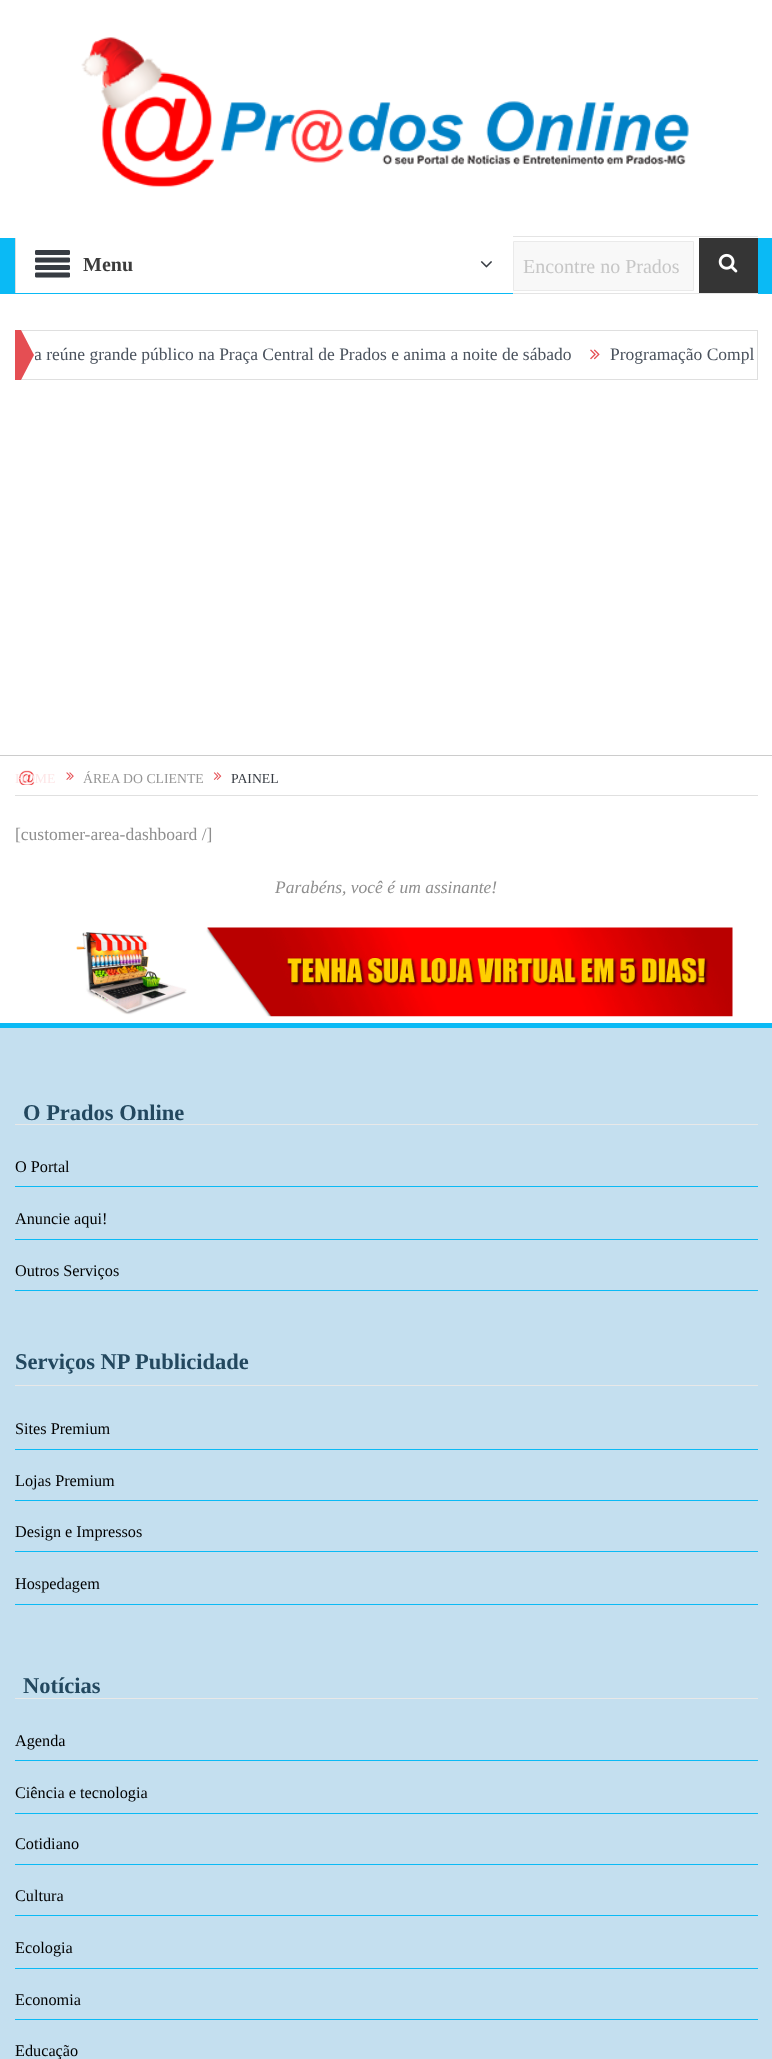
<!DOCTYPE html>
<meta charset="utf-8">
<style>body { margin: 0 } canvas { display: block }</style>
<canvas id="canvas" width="772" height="2059"></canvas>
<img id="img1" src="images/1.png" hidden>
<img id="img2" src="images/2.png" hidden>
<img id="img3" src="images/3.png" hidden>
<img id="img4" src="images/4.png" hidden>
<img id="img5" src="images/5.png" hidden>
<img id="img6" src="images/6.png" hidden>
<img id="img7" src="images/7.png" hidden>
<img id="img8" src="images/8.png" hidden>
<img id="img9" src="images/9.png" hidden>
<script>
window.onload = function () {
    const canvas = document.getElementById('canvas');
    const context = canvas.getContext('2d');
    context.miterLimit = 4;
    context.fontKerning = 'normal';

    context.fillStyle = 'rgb(255, 255, 255)';
    context.fillRect(0, 0, 772, 2059);
    context.drawImage(document.getElementById('img1'), 81, 37, 608, 150);
    context.fillStyle = 'rgb(10, 186, 245)';
    context.fillRect(0, 238, 772, 56);
    context.fillStyle = 'rgb(255, 255, 255)';
    context.fillRect(16, 238, 742, 55);
    context.fillStyle = 'rgb(223, 223, 223)';
    context.fillRect(15, 238, 1, 55);
    context.drawImage(document.getElementById('img2'), 35, 250, 35, 28);
    context.drawImage(document.getElementById('img3'), 480, 261, 12, 7);
    context.fillStyle = 'rgb(228, 228, 228)';
    context.fillRect(513, 236, 245, 1);
    context.fillRect(513, 293, 245, 1);
    context.fillStyle = 'rgb(248, 248, 248)';
    context.beginPath();
    context.rect(513.5, 241.5, 180, 49);
    context.fill();
    context.strokeStyle = 'rgb(234, 234, 234)';
    context.stroke();
    context.fillStyle = 'rgb(53, 53, 53)';
    context.fillRect(699, 238, 59, 55);
    context.drawImage(document.getElementById('img4'), 718, 253, 20, 20);
    context.fillStyle = 'rgb(229, 78, 83)';
    context.fillRect(15, 330, 6, 50);
    context.strokeStyle = 'rgb(223, 223, 223)';
    context.strokeRect(21.5, 330.5, 736, 49);
    context.beginPath();
    context.moveTo(21, 380);
    context.lineTo(21, 330);
    context.lineTo(34, 355);
    context.closePath();
    context.fill();
    context.drawImage(document.getElementById('img5'), 590, 349, 10, 11);
    context.fillStyle = 'rgb(204, 204, 204)';
    context.fillRect(0, 755, 772, 1);
    context.fillStyle = 'rgb(224, 224, 224)';
    context.fillRect(15, 795, 743, 1);
    context.drawImage(document.getElementById('img6'), 18, 770, 17, 15);
    context.drawImage(document.getElementById('img7'), 66, 772, 8, 8);
    context.drawImage(document.getElementById('img8'), 213, 772, 9, 8);
    context.drawImage(document.getElementById('img9'), 76, 927, 657, 90);
    context.fillStyle = 'rgb(196, 223, 239)';
    context.fillRect(0, 1028, 772, 1031);
    context.fillStyle = 'rgb(10, 186, 245)';
    context.fillRect(0, 1023, 772, 5);
    context.fillStyle = 'rgb(232, 232, 232)';
    context.fillRect(15, 1124, 743, 1);
    context.fillStyle = 'rgb(10, 186, 245)';
    context.fillRect(15, 1186, 743, 1);
    context.fillRect(15, 1239, 743, 1);
    context.fillRect(15, 1290, 743, 1);
    context.fillStyle = 'rgb(232, 232, 232)';
    context.fillRect(15, 1385, 743, 1);
    context.fillStyle = 'rgb(10, 186, 245)';
    context.fillRect(15, 1449, 743, 1);
    context.fillRect(15, 1500, 743, 1);
    context.fillRect(15, 1551, 743, 1);
    context.fillRect(15, 1604, 743, 1);
    context.fillStyle = 'rgb(232, 232, 232)';
    context.fillRect(15, 1698, 743, 1);
    context.fillStyle = 'rgb(10, 186, 245)';
    context.fillRect(15, 1760, 743, 1);
    context.fillRect(15, 1813, 743, 1);
    context.fillRect(15, 1864, 743, 1);
    context.fillRect(15, 1915, 743, 1);
    context.fillRect(15, 1968, 743, 1);
    context.fillRect(15, 2019, 743, 1);
    context.font = 'bold 20px Liberation Serif';
    context.fillStyle = 'rgb(60, 60, 60)';
    context.fillText('Menu', 83, 271);
    context.font = '20px Liberation Serif';
    context.fillStyle = 'rgb(198, 198, 198)';
    context.fillText('Encontre no Prados', 523, 273);
    context.save();
    context.beginPath();
    context.rect(35, 331, 719, 48);
    context.clip();
    context.font = '17.5px Liberation Serif';
    context.fillStyle = 'rgb(74, 82, 93)';
    context.fillText('a reúne grande público na Praça Central de Prados e anima a noite de sábado', 34, 360);
    context.restore();
    context.font = '17.5px Liberation Serif';
    context.fillStyle = 'rgb(74, 82, 93)';
    context.fillText('Programação Compl', 610, 360);
    context.font = '13.75px Liberation Serif';
    context.fillStyle = 'rgb(149, 149, 149)';
    context.fillText('ÁREA DO CLIENTE', 83, 783);
    context.fillStyle = 'rgb(253, 230, 231)';
    context.fillText('HOME', 15, 783);
    context.fillStyle = 'rgb(55, 60, 67)';
    context.fillText('PAINEL', 231, 783);
    context.font = '17.5px Liberation Serif';
    context.fillStyle = 'rgb(142, 142, 142)';
    context.fillText('[customer-area-dashboard /]', 15, 840);
    context.font = 'italic 17.5px Liberation Serif';
    context.fillText('Parabéns, você é um assinante!', 275, 893);
    context.font = 'bold 22.5px Liberation Serif';
    context.fillStyle = 'rgb(35, 72, 95)';
    context.fillText('O Prados Online', 23, 1120);
    context.font = '16.25px Liberation Serif';
    context.fillStyle = 'rgb(0, 0, 0)';
    context.fillText('O Portal', 15, 1172);
    context.fillText('Anuncie aqui!', 15, 1224);
    context.fillText('Outros Serviços', 15, 1276);
    context.font = 'bold 22.5px Liberation Serif';
    context.fillStyle = 'rgb(35, 72, 95)';
    context.fillText('Serviços NP Publicidade', 15, 1369);
    context.font = '16.25px Liberation Serif';
    context.fillStyle = 'rgb(0, 0, 0)';
    context.fillText('Sites Premium', 15, 1434);
    context.fillText('Lojas Premium', 15, 1486);
    context.fillText('Design e Impressos', 15, 1537);
    context.fillText('Hospedagem', 15, 1589);
    context.font = 'bold 22.5px Liberation Serif';
    context.fillStyle = 'rgb(35, 72, 95)';
    context.fillText('Notícias', 23, 1693);
    context.font = '16.25px Liberation Serif';
    context.fillStyle = 'rgb(0, 0, 0)';
    context.fillText('Agenda', 15, 1746);
    context.fillText('Ciência e tecnologia', 15, 1798);
    context.fillText('Cotidiano', 15, 1849);
    context.fillText('Cultura', 15, 1901);
    context.fillText('Ecologia', 15, 1953);
    context.fillText('Economia', 15, 2005);
    context.fillText('Educação', 15, 2056);
};
</script>
